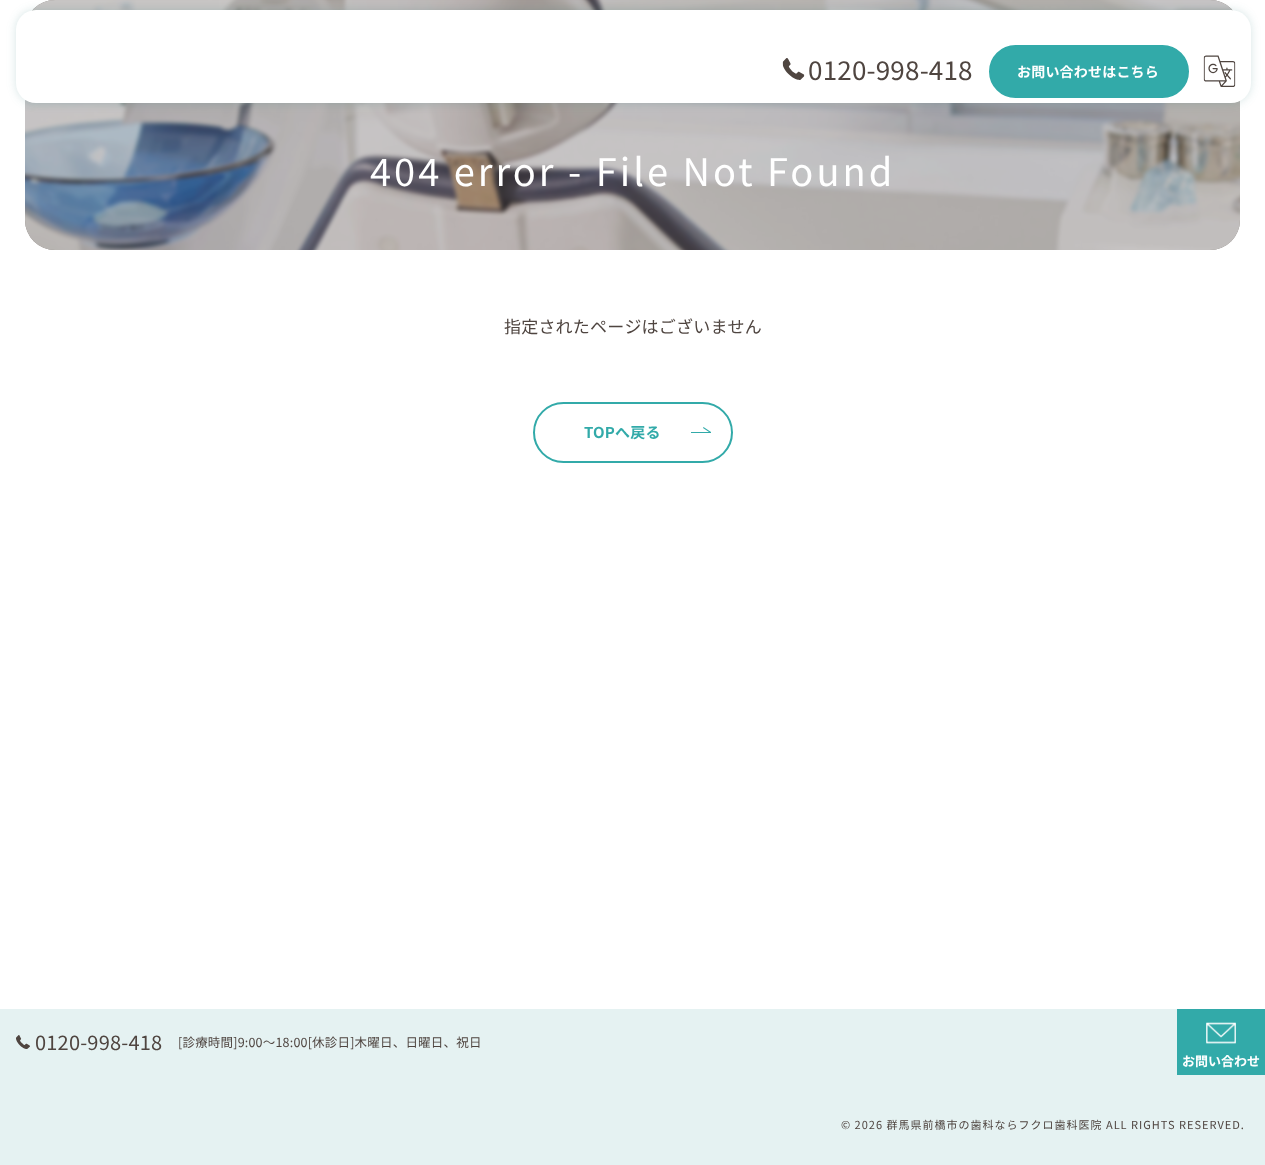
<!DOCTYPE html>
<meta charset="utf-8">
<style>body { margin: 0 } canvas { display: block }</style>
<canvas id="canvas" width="1265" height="1165"></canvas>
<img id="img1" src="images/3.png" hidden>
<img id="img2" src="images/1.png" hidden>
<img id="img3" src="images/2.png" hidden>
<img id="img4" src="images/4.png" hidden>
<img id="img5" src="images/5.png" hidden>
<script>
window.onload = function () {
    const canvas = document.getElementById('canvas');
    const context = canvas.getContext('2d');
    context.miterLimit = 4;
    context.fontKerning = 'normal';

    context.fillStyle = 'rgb(255, 255, 255)';
    context.fillRect(0, 0, 1265, 1165);
    context.fillStyle = 'rgb(79, 69, 64)';
    context.beginPath();
    context.roundRect(25, 0, 1215, 250, 30);
    context.fill();
    context.drawImage(document.getElementById('img1'), 25, 0, 1215, 250);
    context.fillStyle = 'rgba(36, 117, 116, 0.19)';
    context.filter = 'blur(5px)';
    context.beginPath();
    context.roundRect(16, 10, 1235, 93, 20);
    context.fill();
    context.filter = 'none';
    context.fillStyle = 'rgb(255, 255, 255)';
    context.beginPath();
    context.roundRect(16, 10, 1235, 93, 20);
    context.fill();
    context.drawImage(document.getElementById('img2'), 782, 58, 23, 22);
    context.fillStyle = 'rgb(50, 170, 169)';
    context.beginPath();
    context.roundRect(990, 46, 198, 51, 25.5);
    context.fill();
    context.strokeStyle = 'rgb(50, 170, 169)';
    context.lineWidth = 2;
    context.stroke();
    context.drawImage(document.getElementById('img3'), 1203, 55, 33, 32);
    context.beginPath();
    context.roundRect(534, 403, 198, 59, 29.5);
    context.stroke();
    context.beginPath();
    context.moveTo(703.5, 427);
    context.lineTo(711, 432);
    context.lineTo(710.5, 433);
    context.lineTo(703, 428);
    context.closePath();
    context.fill();
    context.fillRect(691, 432, 20, 1);
    context.fillStyle = 'rgb(229, 242, 242)';
    context.fillRect(0, 1009, 1265, 156);
    context.drawImage(document.getElementById('img4'), 16, 1035, 14, 14);
    context.fillStyle = 'rgb(50, 170, 169)';
    context.fillRect(1177, 1009, 88, 66);
    context.drawImage(document.getElementById('img5'), 1206, 1022, 30, 22);
    context.letterSpacing = '0.2px';
    context.font = '26px Noto Sans JP';
    context.fillStyle = 'rgb(79, 69, 64)';
    context.fillText('0120-998-418', 808, 80);
    context.font = 'bold 14px Noto Sans JP';
    context.fillStyle = 'rgb(255, 255, 255)';
    context.fillText('お問い合わせはこちら', 1017, 77);
    context.letterSpacing = '3px';
    context.font = '38px Noto Sans JP';
    context.fillText('404 error - File Not Found', 370, 186);
    context.letterSpacing = '0.2px';
    context.font = '17px Noto Sans JP';
    context.fillStyle = 'rgb(79, 69, 64)';
    context.fillText('指定されたページはございません', 504, 333);
    context.font = 'bold 15px Noto Sans JP';
    context.fillStyle = 'rgb(50, 170, 169)';
    context.fillText('TOPへ戻る', 584, 438);
    context.font = '20px Noto Sans JP';
    context.fillStyle = 'rgb(79, 69, 64)';
    context.fillText('0120-998-418', 35, 1050);
    context.font = '12.5px Noto Sans JP';
    context.fillText('[診療時間]9:00～18:00[休診日]木曜日、日曜日、祝日', 178, 1047);
    context.letterSpacing = '0px';
    context.font = 'bold 13px Noto Sans JP';
    context.fillStyle = 'rgb(255, 255, 255)';
    context.fillText('お問い合わせ', 1182, 1066);
    context.letterSpacing = '1px';
    context.font = '11px Noto Sans JP';
    context.fillStyle = 'rgb(79, 69, 64)';
    context.fillText('© 2026 群馬県前橋市の歯科ならフクロ歯科医院 ALL RIGHTS RESERVED.', 841, 1129);
};
</script>
